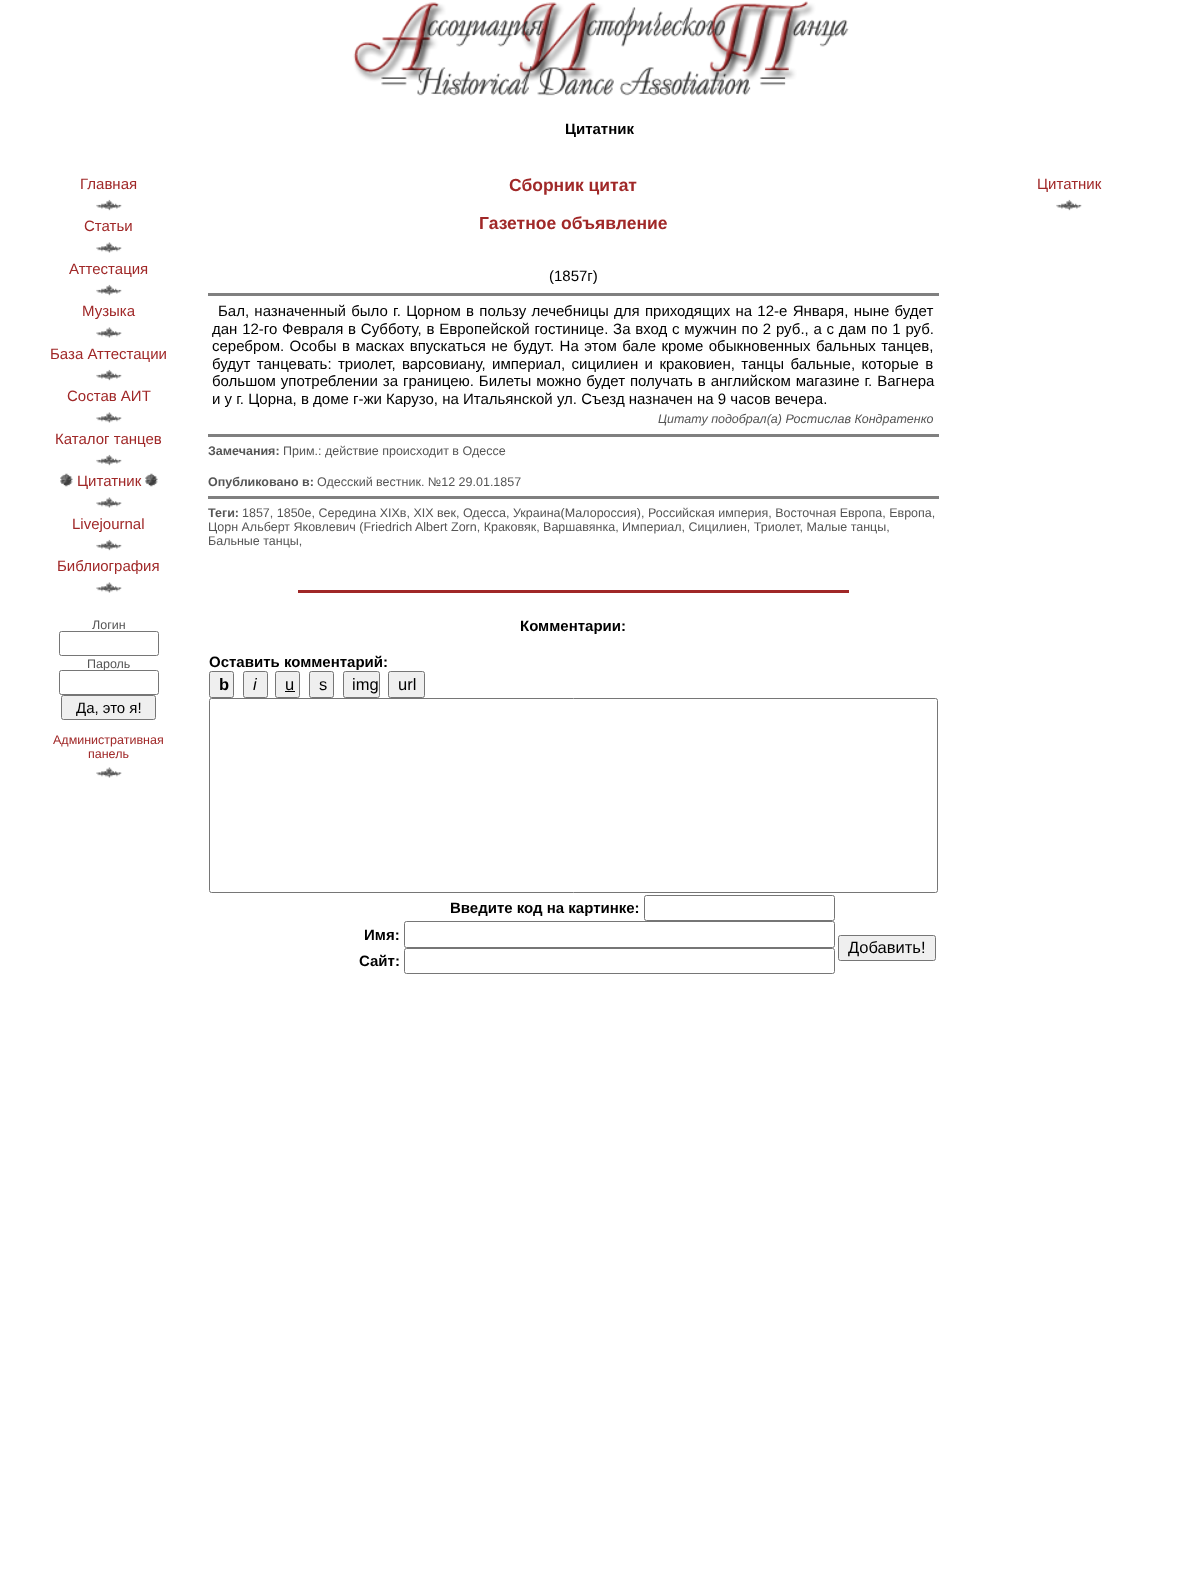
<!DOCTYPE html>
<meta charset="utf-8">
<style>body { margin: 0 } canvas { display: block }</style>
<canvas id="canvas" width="1200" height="1584"></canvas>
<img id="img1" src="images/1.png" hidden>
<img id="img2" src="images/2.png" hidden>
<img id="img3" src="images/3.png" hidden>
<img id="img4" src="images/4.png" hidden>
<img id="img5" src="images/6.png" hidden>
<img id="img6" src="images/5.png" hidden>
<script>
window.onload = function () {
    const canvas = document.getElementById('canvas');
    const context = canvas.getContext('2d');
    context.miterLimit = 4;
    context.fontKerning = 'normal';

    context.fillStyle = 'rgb(255, 255, 255)';
    context.fillRect(0, 0, 1200, 1584);
    context.drawImage(document.getElementById('img1'), 353, 1, 496, 95);
    context.drawImage(document.getElementById('img2'), 96, 199, 26, 12);
    context.drawImage(document.getElementById('img3'), 96, 242, 26, 11);
    context.drawImage(document.getElementById('img2'), 96, 284, 26, 12);
    context.drawImage(document.getElementById('img3'), 96, 327, 26, 11);
    context.drawImage(document.getElementById('img2'), 96, 369, 26, 12);
    context.drawImage(document.getElementById('img3'), 96, 412, 26, 11);
    context.drawImage(document.getElementById('img2'), 96, 454, 26, 12);
    context.drawImage(document.getElementById('img4'), 60, 473, 13, 14);
    context.drawImage(document.getElementById('img4'), 145, 473, 13, 14);
    context.drawImage(document.getElementById('img3'), 96, 497, 26, 11);
    context.drawImage(document.getElementById('img5'), 96, 582, 26, 11);
    context.beginPath();
    context.roundRect(59.5, 631.5, 99, 24, 2);
    context.strokeStyle = 'rgb(118, 118, 118)';
    context.stroke();
    context.fillStyle = 'rgb(239, 239, 239)';
    context.beginPath();
    context.roundRect(61.5, 695.5, 94, 24, 2);
    context.fill();
    context.stroke();
    context.drawImage(document.getElementById('img3'), 96, 767, 26, 11);
    context.fillStyle = 'rgb(128, 128, 128)';
    context.fillRect(208, 293, 731, 3);
    context.fillRect(208, 434, 731, 3);
    context.fillRect(208, 496, 731, 3);
    context.fillStyle = 'rgb(160, 40, 40)';
    context.fillRect(298, 590, 551, 3);
    context.fillStyle = 'rgb(239, 239, 239)';
    context.beginPath();
    context.roundRect(209.5, 671.5, 24, 26, 2);
    context.fill();
    context.stroke();
    context.beginPath();
    context.roundRect(243.5, 671.5, 24, 26, 2);
    context.fill();
    context.stroke();
    context.beginPath();
    context.roundRect(275.5, 671.5, 24, 26, 2);
    context.fill();
    context.stroke();
    context.fillStyle = 'rgb(0, 0, 0)';
    context.fillRect(285, 691, 10, 1);
    context.fillStyle = 'rgb(239, 239, 239)';
    context.beginPath();
    context.roundRect(309.5, 671.5, 24, 26, 2);
    context.fill();
    context.stroke();
    context.beginPath();
    context.roundRect(343.5, 671.5, 36, 26, 2);
    context.fill();
    context.stroke();
    context.beginPath();
    context.roundRect(388.5, 671.5, 36, 26, 2);
    context.fill();
    context.stroke();
    context.beginPath();
    context.roundRect(209.5, 698.5, 728, 194, 2);
    context.stroke();
    context.beginPath();
    context.roundRect(644.5, 895.5, 190, 25, 2);
    context.stroke();
    context.beginPath();
    context.roundRect(404.5, 921.5, 430, 26, 2);
    context.stroke();
    context.beginPath();
    context.roundRect(404.5, 948.5, 430, 25, 2);
    context.stroke();
    context.beginPath();
    context.roundRect(838.5, 935.5, 97, 25, 2);
    context.fill();
    context.stroke();
    context.drawImage(document.getElementById('img2'), 1056, 199, 26, 12);
    context.font = 'bold 15px Liberation Sans';
    context.fillStyle = 'rgb(0, 0, 0)';
    context.fillText('Цитатник', 565, 134);
    context.font = '15px Liberation Sans';
    context.fillStyle = 'rgb(160, 40, 40)';
    context.fillText('Главная', 80, 189);
    context.fillText('Статьи', 84, 231);
    context.fillText('Аттестация', 69, 274);
    context.fillText('Музыка', 82, 316);
    context.fillText('База Аттестации', 50, 359);
    context.fillText('Состав АИТ', 67, 401);
    context.fillText('Каталог танцев', 55, 444);
    context.fillText('Цитатник', 77, 486);
    context.fillText('Livejournal', 72, 529);
    context.drawImage(document.getElementById('img6'), 96, 532, 26, 19);
    context.fillText('Библиография', 57, 571);
    context.font = '12.5px Liberation Sans';
    context.fillStyle = 'rgb(85, 85, 85)';
    context.fillText('Логин', 92, 629);
    context.fillText('Пароль', 87, 668);
    context.fillStyle = 'rgb(255, 255, 255)';
    context.beginPath();
    context.roundRect(59.5, 670.5, 99, 24, 2);
    context.fill();
    context.stroke();
    context.font = '15px Liberation Sans';
    context.fillStyle = 'rgb(0, 0, 0)';
    context.fillText('Да, это я!', 76, 713);
    context.font = '12.5px Liberation Sans';
    context.fillStyle = 'rgb(160, 40, 40)';
    context.fillText('Административная', 53, 744);
    context.fillText('панель', 88, 758);
    context.font = 'bold 17.5px Liberation Sans';
    context.fillText('Сборник цитат', 509, 191);
    context.fillText('Газетное объявление', 479, 229);
    context.font = '15px Liberation Sans';
    context.fillStyle = 'rgb(0, 0, 0)';
    context.fillText('(1857г)', 549, 281);
    context.wordSpacing = '1.1px';
    context.fillText('Бал, назначенный было г. Цорном в пользу лечебницы для приходящих на 12-е Января, ныне будет', 218, 316);
    context.wordSpacing = '0.6px';
    context.fillText('дан 12-го Февраля в Субботу, в Европейской гостинице. За вход с мужчин по 2 руб., а с дам по 1 руб.', 212, 334);
    context.wordSpacing = '1.25px';
    context.fillText('серебром. Особы в масках впускаться не будут. На этом бале кроме обыкновенных бальных танцев,', 212, 351);
    context.wordSpacing = '2.25px';
    context.fillText('будут танцевать: триолет, варсовиану, империал, сицилиен и краковиен, танцы бальные, которые в', 212, 369);
    context.wordSpacing = '0.75px';
    context.fillText('большом употреблении за границею. Билеты можно будет получать в английском магазине г. Вагнера', 212, 386);
    context.wordSpacing = '0px';
    context.fillText('и у г. Цорна, в доме г-жи Карузо, на Итальянской ул. Съезд назначен на 9 часов вечера.', 212, 404);
    context.font = 'italic 12.5px Liberation Sans';
    context.fillStyle = 'rgb(85, 85, 85)';
    context.fillText('Цитату подобрал(а) Ростислав Кондратенко', 658, 423);
    context.font = 'bold 12.5px Liberation Sans';
    context.fillText('Замечания:', 208, 455);
    context.font = '12.5px Liberation Sans';
    context.fillText('Прим.: действие происходит в Одессе', 283, 455);
    context.font = 'bold 12.5px Liberation Sans';
    context.fillText('Опубликовано в:', 208, 486);
    context.font = '12.5px Liberation Sans';
    context.fillText('Одесский вестник. №12 29.01.1857', 317, 486);
    context.font = 'bold 12.5px Liberation Sans';
    context.fillText('Теги:', 208, 517);
    context.font = '12.5px Liberation Sans';
    context.fillText('1857, 1850е, Середина XIXв, XIX век, Одесса, Украина(Малороссия), Российская империя, Восточная Европа, Европа,', 242, 517);
    context.fillText('Цорн Альберт Яковлевич (Friedrich Albert Zorn, Краковяк, Варшавянка, Империал, Сицилиен, Триолет, Малые танцы,', 208, 531);
    context.fillText('Бальные танцы,', 208, 545);
    context.font = 'bold 15px Liberation Sans';
    context.fillStyle = 'rgb(0, 0, 0)';
    context.fillText('Комментарии:', 520, 631);
    context.fillText('Оставить комментарий:', 209, 667);
    context.font = 'bold 16.5px Liberation Sans';
    context.fillText('b', 219, 690);
    context.font = 'italic 16.5px Liberation Sans';
    context.fillText('i', 253, 690);
    context.font = '16.5px Liberation Sans';
    context.fillText('u', 285, 690);
    context.fillText('s', 319, 690);
    context.fillText('img', 352, 690);
    context.fillText('url', 398, 690);
    context.font = 'bold 15px Liberation Sans';
    context.fillText('Введите код на картинке:', 450, 913);
    context.fillText('Имя:', 364, 940);
    context.fillText('Сайт:', 359, 966);
    context.font = '16.5px Liberation Sans';
    context.fillText('Добавить!', 848, 953);
    context.font = '15px Liberation Sans';
    context.fillStyle = 'rgb(160, 40, 40)';
    context.fillText('Цитатник', 1037, 189);
};
</script>
